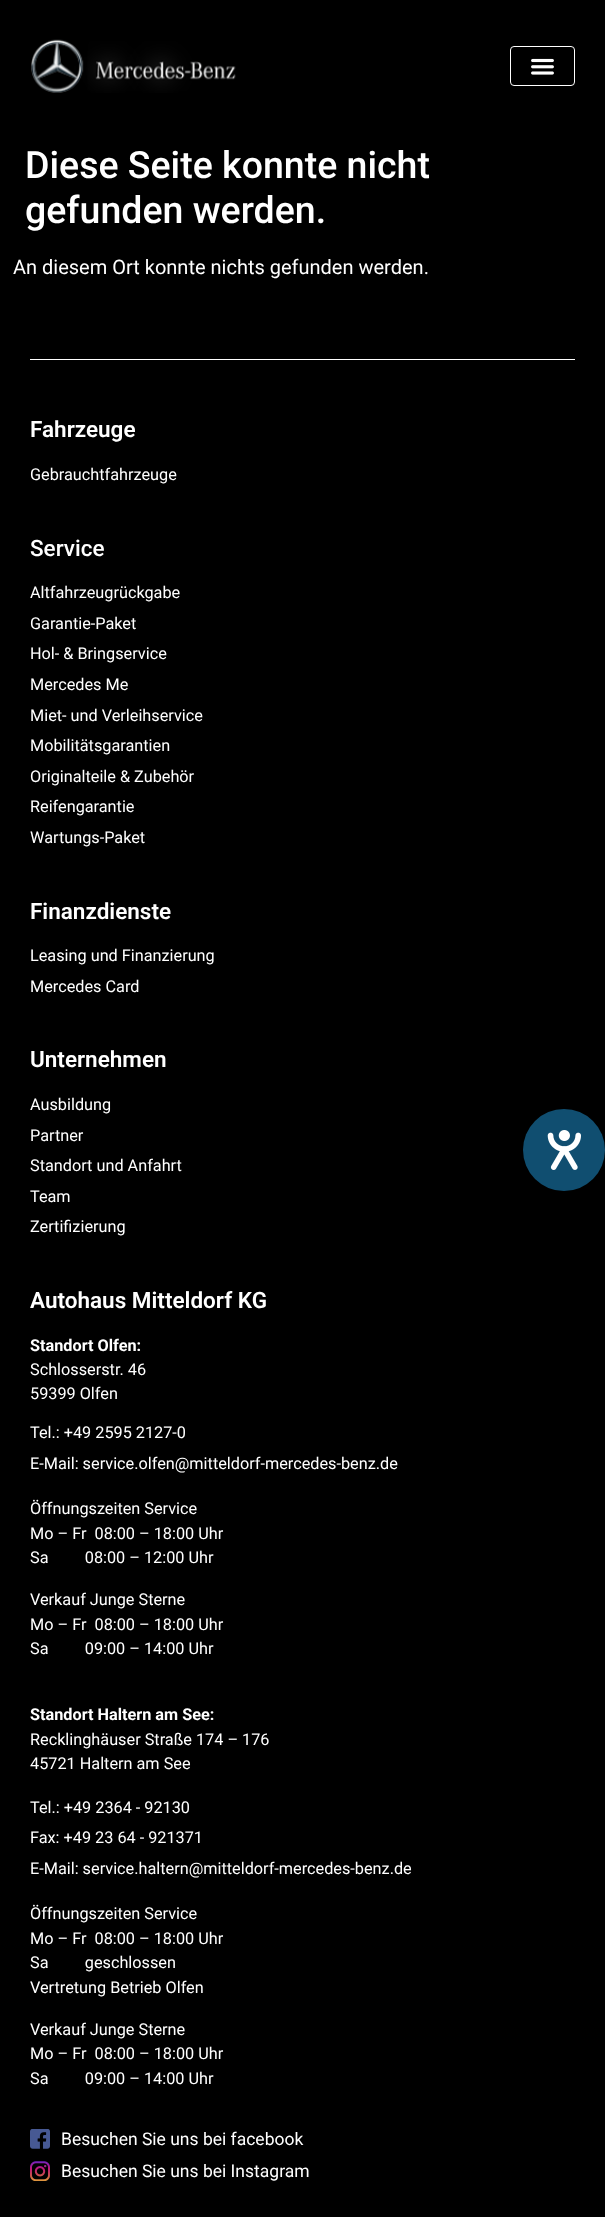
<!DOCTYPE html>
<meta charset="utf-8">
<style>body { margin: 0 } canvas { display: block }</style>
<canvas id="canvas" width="605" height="2217"></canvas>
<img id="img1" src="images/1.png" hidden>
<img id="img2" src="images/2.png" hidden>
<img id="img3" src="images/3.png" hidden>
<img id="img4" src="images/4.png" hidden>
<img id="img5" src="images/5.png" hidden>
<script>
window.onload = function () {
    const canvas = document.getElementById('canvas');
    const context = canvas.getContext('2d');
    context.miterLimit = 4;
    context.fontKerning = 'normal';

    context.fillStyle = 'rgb(0, 0, 0)';
    context.fillRect(0, 0, 605, 2217);
    context.drawImage(document.getElementById('img1'), 31, 39, 205, 54);
    context.beginPath();
    context.roundRect(510.5, 46.5, 64, 39, 3.5);
    context.strokeStyle = 'rgb(255, 255, 255)';
    context.stroke();
    context.drawImage(document.getElementById('img2'), 531, 58, 23, 17);
    context.fillStyle = 'rgb(255, 255, 255)';
    context.fillRect(30, 359, 545, 1);
    context.drawImage(document.getElementById('img3'), 30, 2129, 20, 20);
    context.drawImage(document.getElementById('img4'), 30, 2161, 20, 20);
    context.fillStyle = 'rgb(16, 78, 112)';
    context.beginPath();
    context.arc(564, 1150, 41, 0, 2 * Math.PI);
    context.fill();
    context.drawImage(document.getElementById('img5'), 547, 1130, 34, 40);
    context.font = '500 37.5px Roboto';
    context.fillStyle = 'rgb(255, 255, 255)';
    context.fillText('Diese Seite konnte nicht', 25, 178);
    context.fillText('gefunden werden.', 25, 223);
    context.font = '20px Roboto';
    context.fillText('An diesem Ort konnte nichts gefunden werden.', 13, 274);
    context.font = '600 22.5px Roboto';
    context.fillText('Fahrzeuge', 30, 437);
    context.font = '16.25px Roboto';
    context.fillText('Gebrauchtfahrzeuge', 30, 480);
    context.font = '500 22.5px Roboto';
    context.fillText('Service', 30, 556);
    context.font = '16.25px Roboto';
    context.fillText('Altfahrzeugrückgabe', 30, 598);
    context.fillText('Garantie-Paket', 30, 629);
    context.fillText('Hol- & Bringservice', 30, 659);
    context.fillText('Mercedes Me', 30, 690);
    context.fillText('Miet- und Verleihservice', 30, 721);
    context.fillText('Mobilitätsgarantien', 30, 751);
    context.fillText('Originalteile & Zubehör', 30, 782);
    context.fillText('Reifengarantie', 30, 812);
    context.fillText('Wartungs-Paket', 30, 843);
    context.font = '600 22.5px Roboto';
    context.fillText('Finanzdienste', 30, 919);
    context.font = '16.25px Roboto';
    context.fillText('Leasing und Finanzierung', 30, 961);
    context.fillText('Mercedes Card', 30, 992);
    context.font = '600 22.5px Roboto';
    context.fillText('Unternehmen', 30, 1067);
    context.font = '16.25px Roboto';
    context.fillText('Ausbildung', 30, 1110);
    context.fillText('Partner', 30, 1141);
    context.fillText('Standort und Anfahrt', 30, 1171);
    context.fillText('Team', 30, 1202);
    context.fillText('Zertifizierung', 30, 1232);
    context.font = '600 22.5px Roboto';
    context.fillText('Autohaus Mitteldorf KG', 30, 1308);
    context.font = 'bold 16.25px Roboto';
    context.fillText('Standort Olfen:', 30, 1351);
    context.font = '16.25px Roboto';
    context.fillText('Schlosserstr. 46', 30, 1375);
    context.fillText('59399 Olfen', 30, 1399);
    context.fillText('Tel.: +49 2595 2127-0', 30, 1438);
    context.fillText('E-Mail: service.olfen@mitteldorf-mercedes-benz.de', 30, 1469);
    context.fillText('Öffnungszeiten Service', 30, 1514);
    context.fillText('Mo – Fr  08:00 – 18:00 Uhr', 30, 1539);
    context.fillText('Sa         08:00 – 12:00 Uhr', 30, 1563);
    context.fillText('Verkauf Junge Sterne', 30, 1605);
    context.fillText('Mo – Fr  08:00 – 18:00 Uhr', 30, 1630);
    context.fillText('Sa         09:00 – 14:00 Uhr', 30, 1654);
    context.font = 'bold 16.25px Roboto';
    context.fillText('Standort Haltern am See:', 30, 1720);
    context.font = '16.25px Roboto';
    context.fillText('Recklinghäuser Straße 174 – 176', 30, 1745);
    context.fillText('45721 Haltern am See', 30, 1769);
    context.fillText('Tel.: +49 2364 - 92130', 30, 1813);
    context.fillText('Fax: +49 23 64 - 921371', 30, 1843);
    context.fillText('E-Mail: service.haltern@mitteldorf-mercedes-benz.de', 30, 1874);
    context.fillText('Öffnungszeiten Service', 30, 1919);
    context.fillText('Mo – Fr  08:00 – 18:00 Uhr', 30, 1944);
    context.fillText('Sa         geschlossen', 30, 1968);
    context.fillText('Vertretung Betrieb Olfen', 30, 1993);
    context.fillText('Verkauf Junge Sterne', 30, 2035);
    context.fillText('Mo – Fr  08:00 – 18:00 Uhr', 30, 2059);
    context.fillText('Sa         09:00 – 14:00 Uhr', 30, 2084);
    context.font = '17.5px Roboto';
    context.fillText('Besuchen Sie uns bei facebook', 61, 2145);
    context.fillText('Besuchen Sie uns bei Instagram', 61, 2177);
};
</script>
